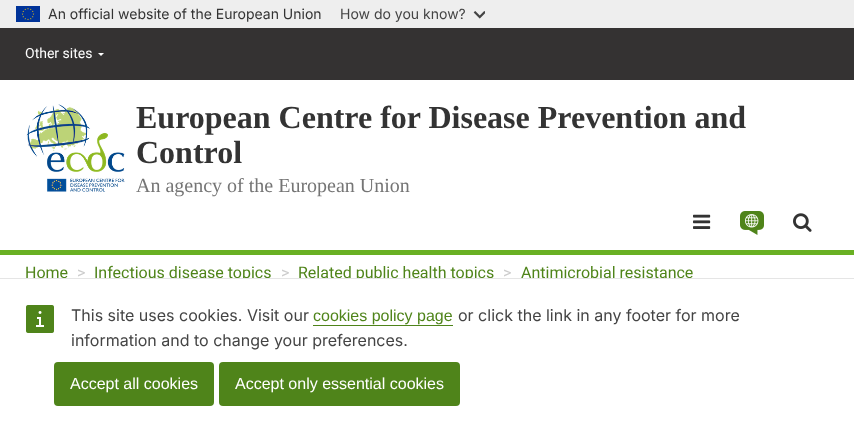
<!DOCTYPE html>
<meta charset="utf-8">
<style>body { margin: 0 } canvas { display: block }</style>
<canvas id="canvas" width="854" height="430"></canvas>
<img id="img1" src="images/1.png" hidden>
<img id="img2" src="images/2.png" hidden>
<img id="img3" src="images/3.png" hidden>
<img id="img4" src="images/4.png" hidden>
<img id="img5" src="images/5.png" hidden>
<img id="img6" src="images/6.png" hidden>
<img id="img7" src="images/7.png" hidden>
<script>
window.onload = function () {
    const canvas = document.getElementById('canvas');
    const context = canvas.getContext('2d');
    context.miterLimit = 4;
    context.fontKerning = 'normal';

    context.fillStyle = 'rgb(255, 255, 255)';
    context.fillRect(0, 0, 854, 430);
    context.fillStyle = 'rgb(238, 238, 238)';
    context.fillRect(0, 0, 854, 28);
    context.drawImage(document.getElementById('img1'), 16, 6, 24, 16);
    context.drawImage(document.getElementById('img2'), 473, 11, 12, 8);
    context.fillStyle = 'rgb(52, 50, 50)';
    context.fillRect(0, 28, 854, 52);
    context.fillStyle = 'rgb(255, 255, 255)';
    context.beginPath();
    context.moveTo(98, 53);
    context.lineTo(104, 53);
    context.lineTo(101, 56);
    context.closePath();
    context.fill();
    context.drawImage(document.getElementById('img3'), 26, 104, 99, 88);
    context.drawImage(document.getElementById('img4'), 693, 214, 18, 15);
    context.drawImage(document.getElementById('img5'), 740, 211, 24, 24);
    context.drawImage(document.getElementById('img6'), 793, 213, 19, 19);
    context.fillStyle = 'rgb(105, 176, 35)';
    context.fillRect(0, 250, 854, 5);
    context.drawImage(document.getElementById('img7'), 26, 305, 28, 28);
    context.fillStyle = 'rgb(79, 132, 26)';
    context.fillRect(313, 325, 140, 1);
    context.beginPath();
    context.roundRect(54, 362, 160, 44, 4);
    context.fill();
    context.beginPath();
    context.roundRect(219, 362, 241, 44, 4);
    context.fill();
    context.font = '14px Inter';
    context.fillStyle = 'rgb(51, 51, 51)';
    context.fillText('An official website of the European Union', 48, 19);
    context.fillStyle = 'rgb(68, 68, 68)';
    context.fillText('How do you know?', 340, 19);
    context.font = '14px Roboto';
    context.fillStyle = 'rgb(255, 255, 255)';
    context.fillText('Other sites', 25, 58);
    context.font = 'bold 32px Liberation Serif';
    context.fillStyle = 'rgb(51, 51, 51)';
    context.fillText('European Centre for Disease Prevention and', 136, 128);
    context.fillText('Control', 136, 163);
    context.font = '20px Liberation Serif';
    context.fillStyle = 'rgb(117, 117, 117)';
    context.fillText('An agency of the European Union', 136, 192);
    context.font = '16px Roboto';
    context.fillStyle = 'rgb(79, 132, 26)';
    context.fillText('Home', 25, 278);
    context.fillStyle = 'rgb(204, 204, 204)';
    context.fillText('>', 77, 278);
    context.fillStyle = 'rgb(79, 132, 26)';
    context.fillText('Infectious disease topics', 94, 278);
    context.fillStyle = 'rgb(204, 204, 204)';
    context.fillText('>', 281, 278);
    context.fillStyle = 'rgb(79, 132, 26)';
    context.fillText('Related public health topics', 298, 278);
    context.fillStyle = 'rgb(204, 204, 204)';
    context.fillText('>', 503, 278);
    context.fillStyle = 'rgb(79, 132, 26)';
    context.fillText('Antimicrobial resistance', 521, 278);
    context.fillStyle = 'rgb(255, 255, 255)';
    context.fillRect(243, 279, 225, 3);
    context.fillStyle = 'rgb(229, 229, 229)';
    context.fillRect(0, 278, 854, 1);
    context.font = '16px Inter';
    context.fillStyle = 'rgb(68, 68, 68)';
    context.fillText('This site uses cookies. Visit our', 71, 321);
    context.font = '16px Liberation Sans';
    context.fillStyle = 'rgb(79, 132, 26)';
    context.fillText('cookies policy page', 313, 321);
    context.font = '16px Inter';
    context.fillStyle = 'rgb(68, 68, 68)';
    context.fillText('or click the link in any footer for more', 458, 321);
    context.fillText('information and to change your preferences.', 71, 346);
    context.font = '16px Liberation Sans';
    context.fillStyle = 'rgb(255, 255, 255)';
    context.fillText('Accept all cookies', 70, 389);
    context.fillText('Accept only essential cookies', 235, 389);
};
</script>
